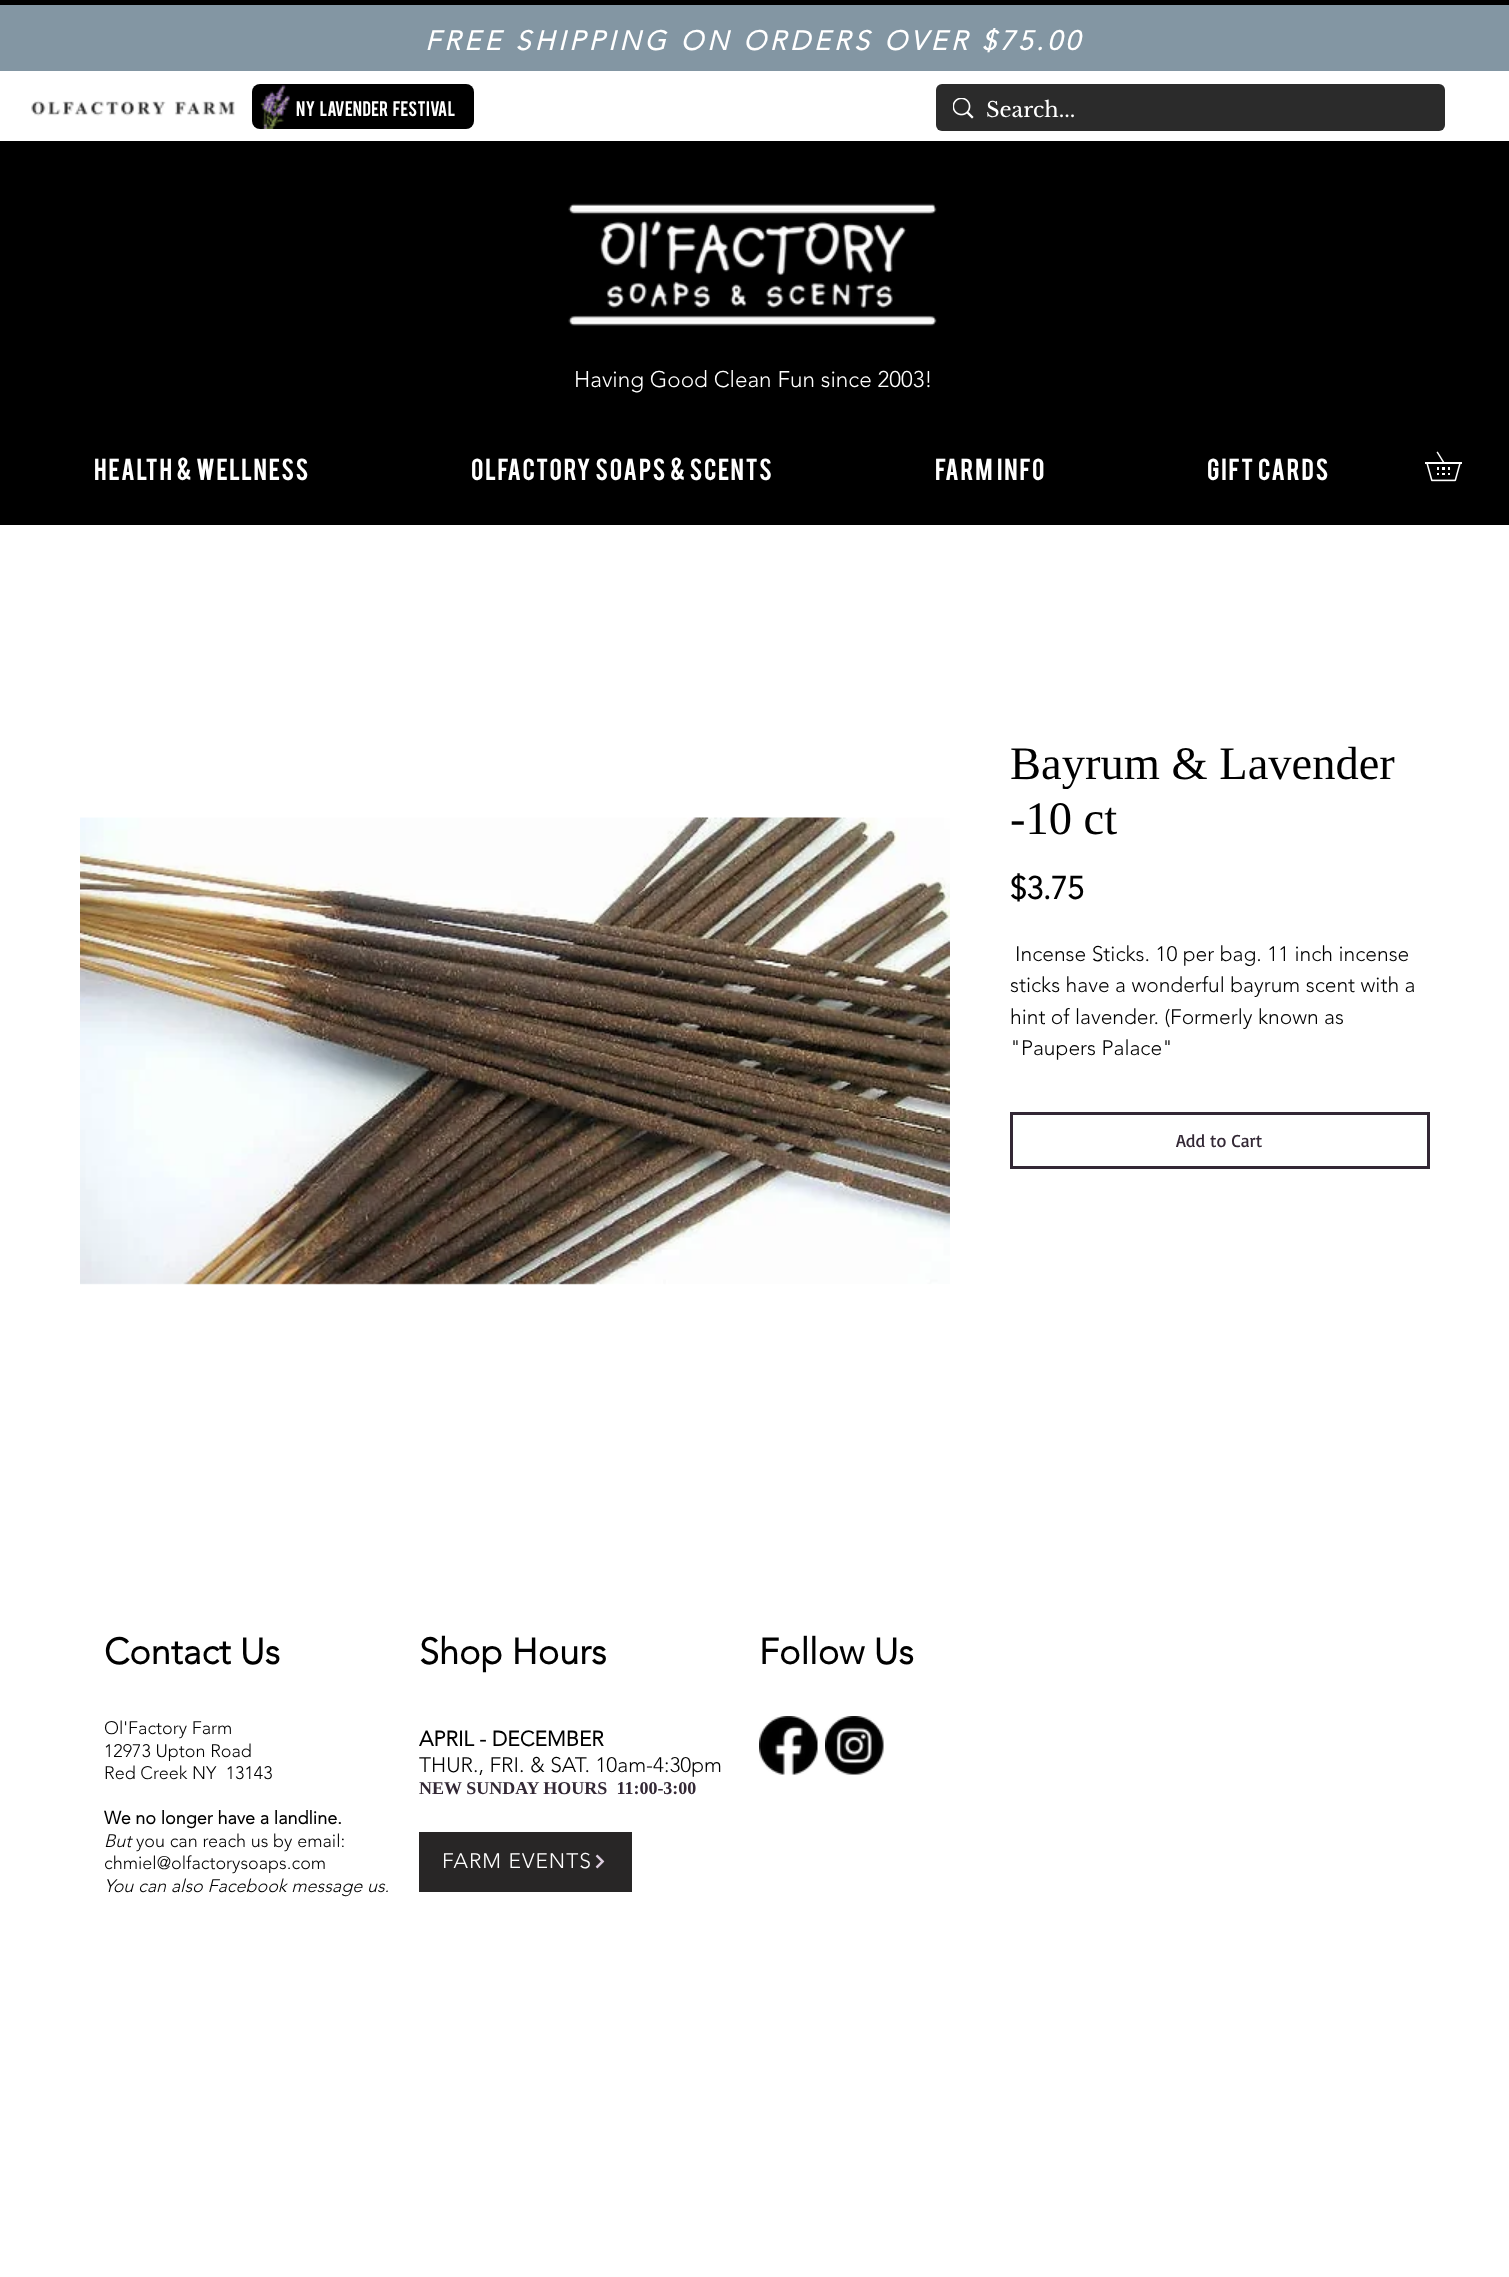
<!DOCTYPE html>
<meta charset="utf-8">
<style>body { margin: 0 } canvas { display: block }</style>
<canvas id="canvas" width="1509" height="2277"></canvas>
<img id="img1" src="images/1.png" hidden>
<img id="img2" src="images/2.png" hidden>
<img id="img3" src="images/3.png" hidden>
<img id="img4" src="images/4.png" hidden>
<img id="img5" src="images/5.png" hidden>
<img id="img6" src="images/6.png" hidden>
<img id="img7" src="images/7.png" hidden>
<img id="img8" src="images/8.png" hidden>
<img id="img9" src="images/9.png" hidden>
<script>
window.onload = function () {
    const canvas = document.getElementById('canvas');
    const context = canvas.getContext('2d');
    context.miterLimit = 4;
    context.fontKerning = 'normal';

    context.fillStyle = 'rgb(255, 255, 255)';
    context.fillRect(0, 0, 1509, 2277);
    context.fillStyle = 'rgb(0, 0, 0)';
    context.fillRect(0, 0, 1509, 525);
    context.fillStyle = 'rgb(131, 150, 163)';
    context.fillRect(0, 5, 1509, 66);
    context.fillStyle = 'rgb(255, 255, 255)';
    context.fillRect(0, 71, 1509, 70);
    context.drawImage(document.getElementById('img1'), 31, 100, 204, 16);
    context.fillStyle = 'rgb(0, 0, 0)';
    context.beginPath();
    context.roundRect(252, 84, 222, 45, 8);
    context.fill();
    context.drawImage(document.getElementById('img2'), 260, 85, 30, 44);
    context.fillStyle = 'rgb(43, 43, 43)';
    context.beginPath();
    context.roundRect(936, 84, 509, 47, 6);
    context.fill();
    context.drawImage(document.getElementById('img3'), 953, 98, 21, 21);
    context.drawImage(document.getElementById('img4'), 568, 203, 369, 123);
    context.drawImage(document.getElementById('img5'), 1425, 451, 37, 31);
    context.drawImage(document.getElementById('img6'), 80, 817, 870, 468);
    context.strokeStyle = 'rgb(51, 40, 53)';
    context.lineWidth = 3;
    context.strokeRect(1011.5, 1113.5, 417, 54);
    context.drawImage(document.getElementById('img7'), 759, 1716, 59, 59);
    context.drawImage(document.getElementById('img8'), 825, 1716, 59, 59);
    context.fillStyle = 'rgb(40, 38, 38)';
    context.fillRect(419, 1832, 213, 60);
    context.drawImage(document.getElementById('img9'), 595, 1854, 10, 15);
    context.letterSpacing = '4.05px';
    context.font = 'italic bold 27px "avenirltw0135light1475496"';
    context.fillStyle = 'rgb(255, 255, 255)';
    context.fillText('FREE SHIPPING ON ORDERS OVER $75.00', 425, 50);
    context.letterSpacing = '0px';
    context.font = '16.5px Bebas';
    context.fillText('NY   LAVENDER   FESTIVAL', 296, 116);
    context.font = '21px Libre Baskerville';
    context.fillText('Search...', 986, 117);
    context.font = '300 22.5px "avenirltw0135light1475496"';
    context.fillText('Having Good Clean Fun since 2003!', 574, 387);
    context.letterSpacing = '1.2px';
    context.font = '24px Bebas';
    context.fillText('HEALTH & WELLNESS', 94, 480);
    context.fillText('OLFACTORY SOAPS & SCENTS', 471, 480);
    context.fillText('FARM INFO', 935, 480);
    context.fillText('GIFT CARDS', 1207, 480);
    context.letterSpacing = '0px';
    context.font = '46.5px Liberation Serif';
    context.fillStyle = 'rgb(0, 0, 0)';
    context.fillText('Bayrum & Lavender', 1010, 779);
    context.fillText('-10 ct', 1010, 834);
    context.font = 'bold 31.5px "avenirltw0135light1475496"';
    context.fillText('$3.75', 1010, 899);
    context.font = '300 21px "avenirltw0135light1475496"';
    context.fillText('Incense Sticks. 10 per bag. 11 inch incense', 1015, 961);
    context.fillText('sticks have a wonderful bayrum scent with a', 1010, 992);
    context.fillText('hint of lavender. (Formerly known as', 1010, 1024);
    context.fillText('"Paupers Palace"', 1010, 1055);
    context.font = '18px Basic';
    context.fillStyle = 'rgb(51, 40, 53)';
    context.fillText('Add to Cart', 1176, 1147);
    context.font = 'bold 36px "avenirltw0135light1475496"';
    context.fillStyle = 'rgb(0, 0, 0)';
    context.fillText('Contact Us', 104, 1664);
    context.fillText('Shop Hours', 419, 1664);
    context.fillText('Follow Us', 759, 1664);
    context.font = '300 18px "avenirltw0135light1475496"';
    context.fillText('Ol\'Factory Farm', 104, 1734);
    context.fillText('12973 Upton Road', 104, 1757);
    context.fillText('Red Creek NY  13143', 104, 1779);
    context.font = 'bold 18px "avenirltw0135light1475496"';
    context.fillText('We no longer have a landline.', 104, 1824);
    context.font = 'italic 300 18px "avenirltw0135light1475496"';
    context.fillText('But', 104, 1847);
    context.font = '300 18px "avenirltw0135light1475496"';
    context.fillText('you can reach us by email:', 136, 1847);
    context.fillText('chmiel@olfactorysoaps.com', 104, 1869);
    context.font = 'italic 300 18px "avenirltw0135light1475496"';
    context.fillText('You can also Facebook message us.', 104, 1892);
    context.font = 'bold 21px "avenirltw0135light1475496"';
    context.fillText('APRIL - DECEMBER', 419, 1746);
    context.font = '300 21px "avenirltw0135light1475496"';
    context.fillText('THUR., FRI. & SAT. 10am-4:30pm', 419, 1772);
    context.font = 'bold 18px Liberation Serif';
    context.fillStyle = 'rgb(51, 40, 53)';
    context.fillText('NEW SUNDAY HOURS  11:00-3:00', 419, 1794);
    context.letterSpacing = '1px';
    context.font = '300 21px "avenirltw0135light1475496"';
    context.fillStyle = 'rgb(255, 255, 255)';
    context.fillText('FARM EVENTS', 442, 1868);
};
</script>
